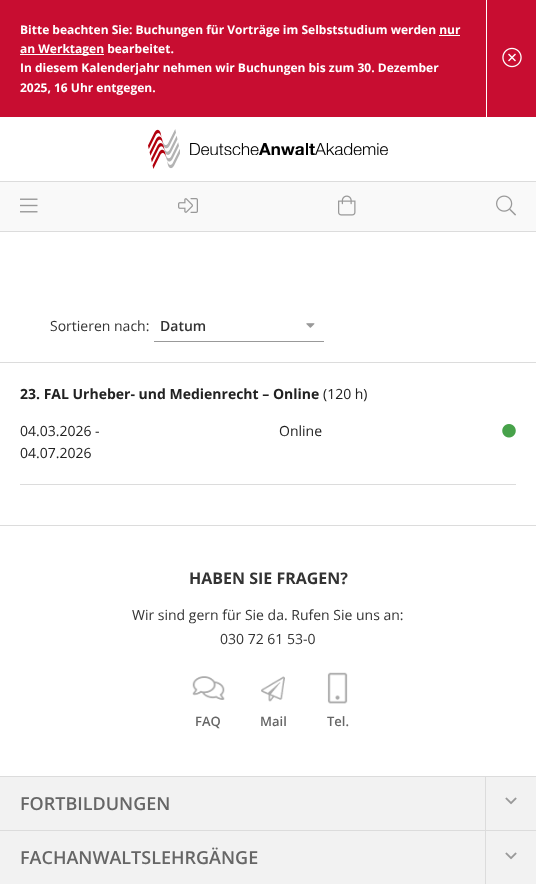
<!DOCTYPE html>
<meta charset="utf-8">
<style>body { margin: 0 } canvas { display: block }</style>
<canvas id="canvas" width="536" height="884"></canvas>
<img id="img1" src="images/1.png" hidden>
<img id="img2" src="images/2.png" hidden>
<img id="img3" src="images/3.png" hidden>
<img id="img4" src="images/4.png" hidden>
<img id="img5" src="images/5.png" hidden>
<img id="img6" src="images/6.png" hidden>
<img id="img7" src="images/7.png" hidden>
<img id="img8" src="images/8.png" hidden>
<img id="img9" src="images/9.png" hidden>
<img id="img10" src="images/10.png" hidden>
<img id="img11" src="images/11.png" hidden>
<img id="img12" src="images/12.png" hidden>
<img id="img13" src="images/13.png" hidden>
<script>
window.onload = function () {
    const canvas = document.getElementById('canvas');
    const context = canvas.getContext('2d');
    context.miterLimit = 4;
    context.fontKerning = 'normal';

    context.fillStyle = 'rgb(255, 255, 255)';
    context.fillRect(0, 0, 536, 884);
    context.fillStyle = 'rgb(200, 13, 49)';
    context.fillRect(0, 0, 536, 117);
    context.fillStyle = 'rgb(255, 255, 255)';
    context.fillRect(439, 35, 21, 1);
    context.fillRect(20, 54, 84, 1);
    context.fillRect(486, 0, 1, 117);
    context.drawImage(document.getElementById('img1'), 502, 47, 20, 21);
    context.fillStyle = 'rgb(220, 220, 220)';
    context.fillRect(0, 231, 536, 1);
    context.drawImage(document.getElementById('img2'), 148, 129, 32, 40);
    context.drawImage(document.getElementById('img3'), 190, 143, 198, 12);
    context.fillStyle = 'rgb(249, 249, 249)';
    context.fillRect(0, 182, 536, 49);
    context.fillStyle = 'rgb(220, 220, 220)';
    context.fillRect(0, 181, 536, 1);
    context.drawImage(document.getElementById('img4'), 20, 198, 18, 15);
    context.drawImage(document.getElementById('img5'), 178, 198, 20, 15);
    context.drawImage(document.getElementById('img6'), 338, 195, 18, 21);
    context.drawImage(document.getElementById('img7'), 496, 195, 20, 21);
    context.fillRect(0, 362, 536, 1);
    context.fillStyle = 'rgb(153, 153, 153)';
    context.fillRect(154, 341, 170, 1);
    context.drawImage(document.getElementById('img8'), 306, 323, 9, 5);
    context.fillStyle = 'rgb(220, 220, 220)';
    context.fillRect(20, 484, 496, 1);
    context.drawImage(document.getElementById('img9'), 502, 424, 14, 14);
    context.fillRect(0, 525, 536, 1);
    context.drawImage(document.getElementById('img10'), 192, 676, 33, 24);
    context.drawImage(document.getElementById('img11'), 261, 676, 24, 26);
    context.drawImage(document.getElementById('img12'), 327, 672, 21, 32);
    context.fillStyle = 'rgb(242, 242, 242)';
    context.fillRect(0, 777, 536, 107);
    context.fillStyle = 'rgb(220, 220, 220)';
    context.fillRect(0, 776, 536, 1);
    context.fillRect(0, 830, 536, 1);
    context.fillRect(485, 777, 1, 53);
    context.drawImage(document.getElementById('img13'), 505, 797, 12, 8);
    context.fillRect(485, 831, 1, 53);
    context.drawImage(document.getElementById('img13'), 505, 852, 12, 8);
    context.font = 'bold 12px Open Sans';
    context.fillStyle = 'rgb(255, 255, 255)';
    context.fillText('Bitte beachten Sie: Buchungen für Vorträge im Selbststudium werden nur', 20, 34);
    context.fillText('an Werktagen bearbeitet.', 20, 53);
    context.fillText('In diesem Kalenderjahr nehmen wir Buchungen bis zum 30. Dezember', 20, 72);
    context.fillText('2025, 16 Uhr entgegen.', 20, 92);
    context.font = '14px Open Sans';
    context.fillStyle = 'rgb(51, 51, 51)';
    context.fillText('Sortieren nach:', 50, 331);
    context.font = '600 14px Open Sans';
    context.fillText('Datum', 160, 331);
    context.font = 'bold 14px Open Sans';
    context.fillStyle = 'rgb(33, 33, 33)';
    context.fillText('23. FAL Urheber- und Medienrecht – Online', 20, 399);
    context.font = '14px Open Sans';
    context.fillText('(120 h)', 323, 399);
    context.fillText('04.03.2026 -', 20, 436);
    context.fillText('04.07.2026', 20, 458);
    context.fillText('Online', 279, 436);
    context.font = 'bold 16px Open Sans';
    context.fillStyle = 'rgb(51, 51, 51)';
    context.fillText('HABEN SIE FRAGEN?', 189, 584);
    context.font = '14px Open Sans';
    context.fillText('Wir sind gern für Sie da. Rufen Sie uns an:', 132, 620);
    context.fillText('030 72 61 53-0', 220, 644);
    context.font = '600 13px Open Sans';
    context.fillStyle = 'rgb(102, 102, 102)';
    context.fillText('FAQ', 195, 726);
    context.fillText('Mail', 260, 726);
    context.fillText('Tel.', 327, 726);
    context.font = '600 18px Open Sans';
    context.fillText('FORTBILDUNGEN', 20, 810);
    context.fillText('FACHANWALTSLEHRGÄNGE', 20, 864);
};
</script>
